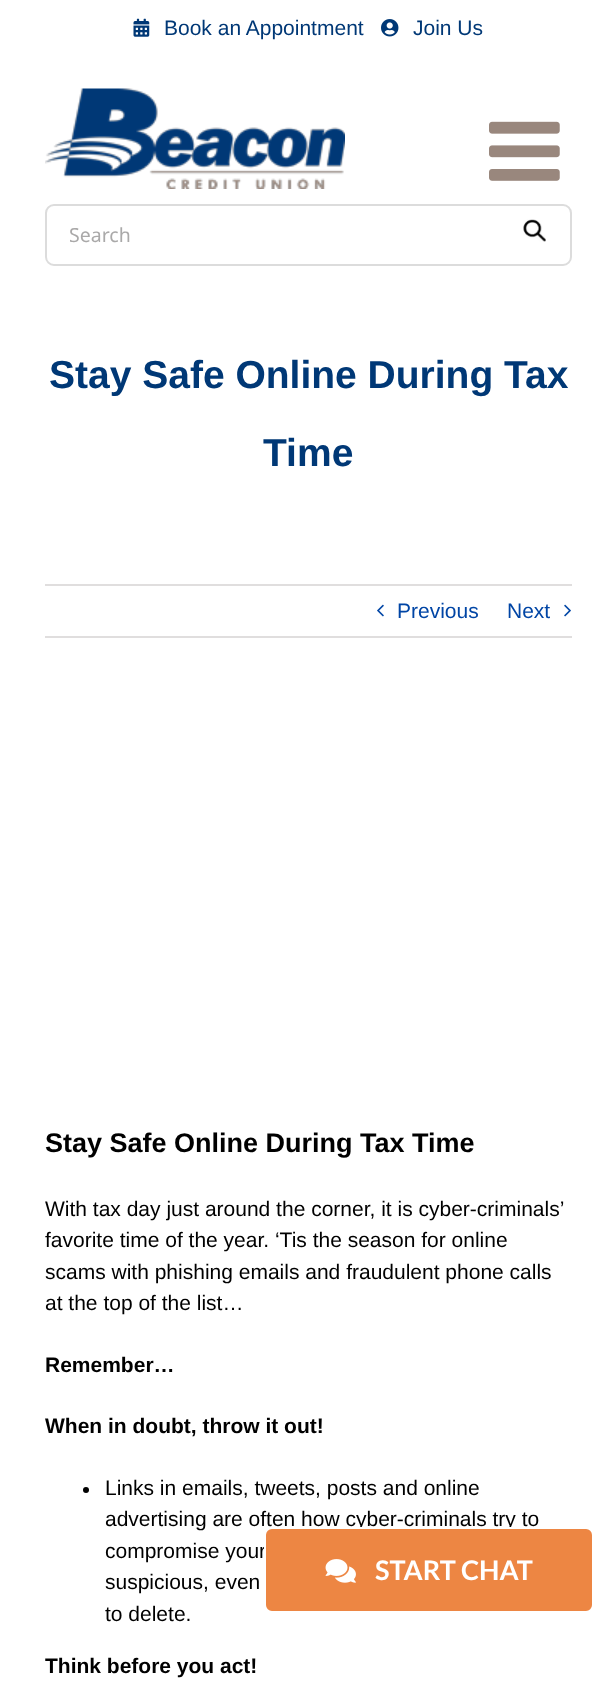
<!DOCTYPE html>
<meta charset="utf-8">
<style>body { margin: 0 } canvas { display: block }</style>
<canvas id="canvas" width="616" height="1695"></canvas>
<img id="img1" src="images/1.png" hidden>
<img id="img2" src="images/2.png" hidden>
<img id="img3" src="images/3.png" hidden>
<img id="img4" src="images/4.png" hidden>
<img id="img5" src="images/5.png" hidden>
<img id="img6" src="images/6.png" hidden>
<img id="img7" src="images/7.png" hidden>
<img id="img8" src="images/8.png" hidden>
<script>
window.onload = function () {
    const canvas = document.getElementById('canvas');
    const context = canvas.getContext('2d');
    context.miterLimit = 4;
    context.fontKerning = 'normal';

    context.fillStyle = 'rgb(255, 255, 255)';
    context.fillRect(0, 0, 616, 1695);
    context.drawImage(document.getElementById('img1'), 133, 18, 17, 19);
    context.drawImage(document.getElementById('img2'), 381, 19, 18, 18);
    context.drawImage(document.getElementById('img3'), 489, 121, 71, 60);
    context.drawImage(document.getElementById('img4'), 45, 88, 300, 101);
    context.beginPath();
    context.roundRect(46, 205, 525, 60, 8);
    context.strokeStyle = 'rgb(220, 220, 220)';
    context.lineWidth = 2;
    context.stroke();
    context.drawImage(document.getElementById('img5'), 523, 219, 23, 23);
    context.fillStyle = 'rgb(224, 222, 222)';
    context.fillRect(45, 584, 527, 2);
    context.fillRect(45, 636, 527, 2);
    context.drawImage(document.getElementById('img6'), 377, 604, 7, 13);
    context.drawImage(document.getElementById('img7'), 564, 604, 7, 13);
    context.fillStyle = 'rgb(0, 0, 0)';
    context.beginPath();
    context.arc(86, 1490, 3, 0, 2 * Math.PI);
    context.fill();
    context.font = '21px Liberation Sans';
    context.fillStyle = 'rgb(0, 56, 118)';
    context.fillText('Book an Appointment', 164, 35);
    context.fillText('Join Us', 413, 35);
    context.font = '19.5px Noto Sans';
    context.fillStyle = 'rgb(170, 169, 169)';
    context.fillText('Search', 69, 242);
    context.font = 'bold 39px Liberation Sans';
    context.fillStyle = 'rgb(0, 56, 118)';
    context.fillText('Stay Safe Online During Tax', 49, 388);
    context.fillText('Time', 263, 466);
    context.font = '21px Liberation Sans';
    context.fillStyle = 'rgb(0, 69, 165)';
    context.fillText('Previous', 397, 618);
    context.fillText('Next', 507, 618);
    context.font = 'bold 27px Liberation Sans';
    context.fillStyle = 'rgb(0, 0, 0)';
    context.fillText('Stay Safe Online During Tax Time', 45, 1152);
    context.font = '21px Liberation Sans';
    context.fillText('With tax day just around the corner, it is cyber-criminals’', 45, 1216);
    context.fillText('favorite time of the year. ‘Tis the season for online', 45, 1247);
    context.fillText('scams with phishing emails and fraudulent phone calls', 45, 1279);
    context.fillText('at the top of the list…', 45, 1310);
    context.font = 'bold 21px Liberation Sans';
    context.fillText('Remember…', 45, 1372);
    context.fillText('When in doubt, throw it out!', 45, 1433);
    context.font = '21px Liberation Sans';
    context.fillText('Links in emails, tweets, posts and online', 105, 1495);
    context.fillText('advertising are often how cyber-criminals try to', 105, 1526);
    context.fillText('compromise your', 105, 1558);
    context.fillText('suspicious, even', 105, 1589);
    context.fillText('to delete.', 105, 1621);
    context.font = 'bold 21px Liberation Sans';
    context.fillText('Think before you act!', 45, 1673);
    context.fillStyle = 'rgb(237, 134, 67)';
    context.beginPath();
    context.roundRect(265, 1528, 328, 84, 7);
    context.fill();
    context.strokeStyle = 'rgb(255, 255, 255)';
    context.stroke();
    context.drawImage(document.getElementById('img8'), 325, 1559, 31, 24);
    context.font = 'bold 27px Lato';
    context.fillStyle = 'rgb(255, 255, 255)';
    context.fillText('START CHAT', 375, 1580);
};
</script>
